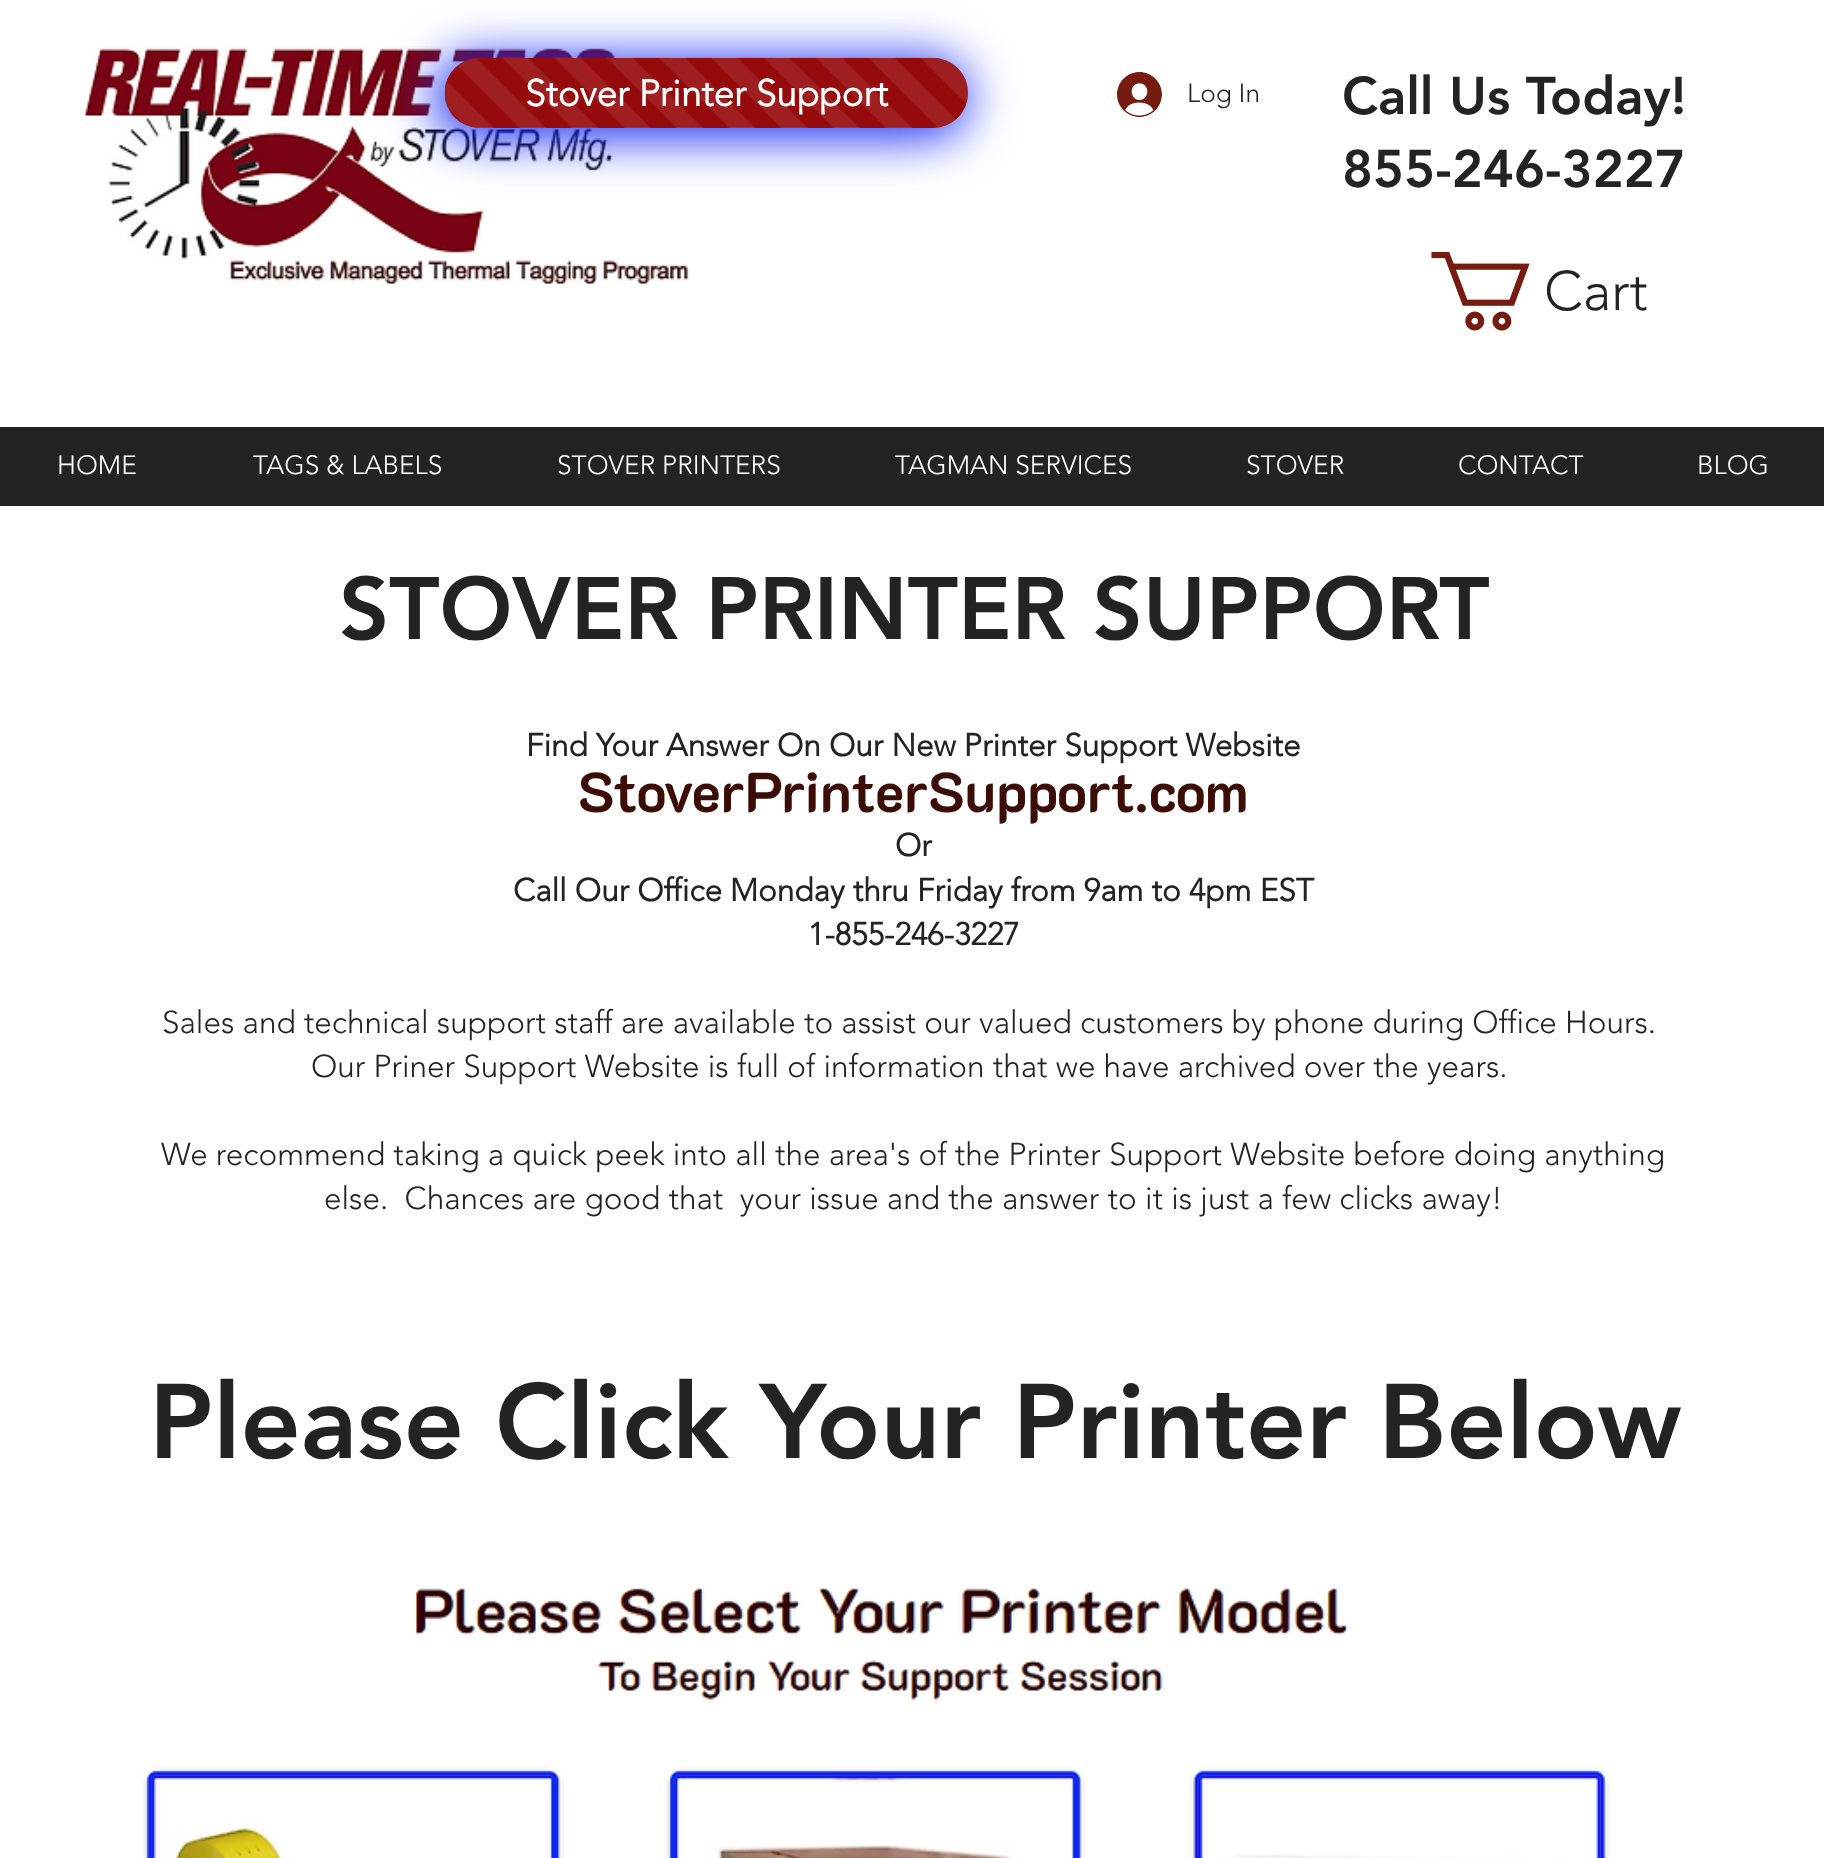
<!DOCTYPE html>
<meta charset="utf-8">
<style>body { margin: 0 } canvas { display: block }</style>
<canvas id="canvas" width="1824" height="1858"></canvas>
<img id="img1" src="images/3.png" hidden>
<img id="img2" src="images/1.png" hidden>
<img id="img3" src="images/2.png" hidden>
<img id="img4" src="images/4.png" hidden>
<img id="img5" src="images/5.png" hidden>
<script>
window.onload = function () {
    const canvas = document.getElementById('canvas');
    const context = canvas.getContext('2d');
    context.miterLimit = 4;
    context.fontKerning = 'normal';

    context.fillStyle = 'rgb(255, 255, 255)';
    context.fillRect(0, 0, 1824, 1858);
    context.drawImage(document.getElementById('img1'), 83, 46, 606, 238);
    context.fillStyle = 'rgb(26, 45, 243)';
    context.filter = 'blur(24.5px)';
    context.beginPath();
    context.roundRect(434, 58, 534, 80, 40);
    context.fill();
    context.filter = 'none';
    context.fillStyle = 'rgb(149, 11, 11)';
    context.beginPath();
    context.roundRect(445, 58, 523, 70, 35);
    context.fill();
    context.drawImage(document.getElementById('img2'), 444, 57, 524, 71);
    context.drawImage(document.getElementById('img3'), 1431, 252, 99, 79);
    context.drawImage(document.getElementById('img4'), 1117, 72, 45, 45);
    context.fillStyle = 'rgb(36, 35, 35)';
    context.fillRect(0, 427, 1824, 79);
    context.drawImage(document.getElementById('img5'), 142, 1586, 1468, 272);
    context.font = 'bold 36.75px "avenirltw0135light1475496"';
    context.fillStyle = 'rgb(255, 255, 255)';
    context.fillText('Stover Printer Support', 525, 106);
    context.font = '900 52.5px "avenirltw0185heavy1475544"';
    context.fillStyle = 'rgb(36, 35, 35)';
    context.fillText('Call Us Today!', 1342, 114);
    context.fillText('855-246-3227', 1342, 187);
    context.font = '300 55px "avenirltw0135light1475496"';
    context.fillText('Cart', 1544, 310);
    context.font = '300 26.25px "avenirltw0135light1475496"';
    context.fillText('Log In', 1187, 102);
    context.fillStyle = 'rgb(255, 255, 255)';
    context.fillText('HOME', 57, 474);
    context.fillText('TAGS & LABELS', 253, 474);
    context.fillText('STOVER PRINTERS', 557, 474);
    context.fillText('TAGMAN SERVICES', 895, 474);
    context.fillText('STOVER', 1246, 474);
    context.fillText('CONTACT', 1458, 474);
    context.fillText('BLOG', 1697, 474);
    context.font = '900 87.5px "avenirltw0185heavy1475544"';
    context.fillStyle = 'rgb(36, 35, 35)';
    context.fillText('STOVER PRINTER SUPPORT', 339, 639);
    context.font = 'bold 31.5px "avenirltw0135light1475496"';
    context.fillText('Find Your Answer On Our New Printer Support Website', 526, 756);
    context.font = 'bold 56px "K2D"';
    context.fillStyle = 'rgb(59, 13, 5)';
    context.fillText('StoverPrinterSupport.com', 578, 812);
    context.font = 'bold 31.5px "avenirltw0135light1475496"';
    context.fillStyle = 'rgb(36, 35, 35)';
    context.fillText('Or', 895, 856);
    context.fillText('Call Our Office Monday thru Friday from 9am to 4pm EST', 513, 901);
    context.fillText('1-855-246-3227', 808, 945);
    context.font = '300 31.5px "avenirltw0135light1475496"';
    context.fillText('Sales and technical support staff are available to assist our valued customers by phone during Office Hours.', 162, 1033);
    context.fillText('Our Priner Support Website is full of information that we have archived over the years.', 311, 1077);
    context.fillText('We recommend taking a quick peek into all the area\'s of the Printer Support Website before doing anything', 161, 1165);
    context.fillText('else.  Chances are good that  your issue and the answer to it is just a few clicks away!', 324, 1209);
    context.font = '900 105px "avenirltw0185heavy1475544"';
    context.fillText('Please Click Your Printer Below', 149, 1458);
};
</script>
